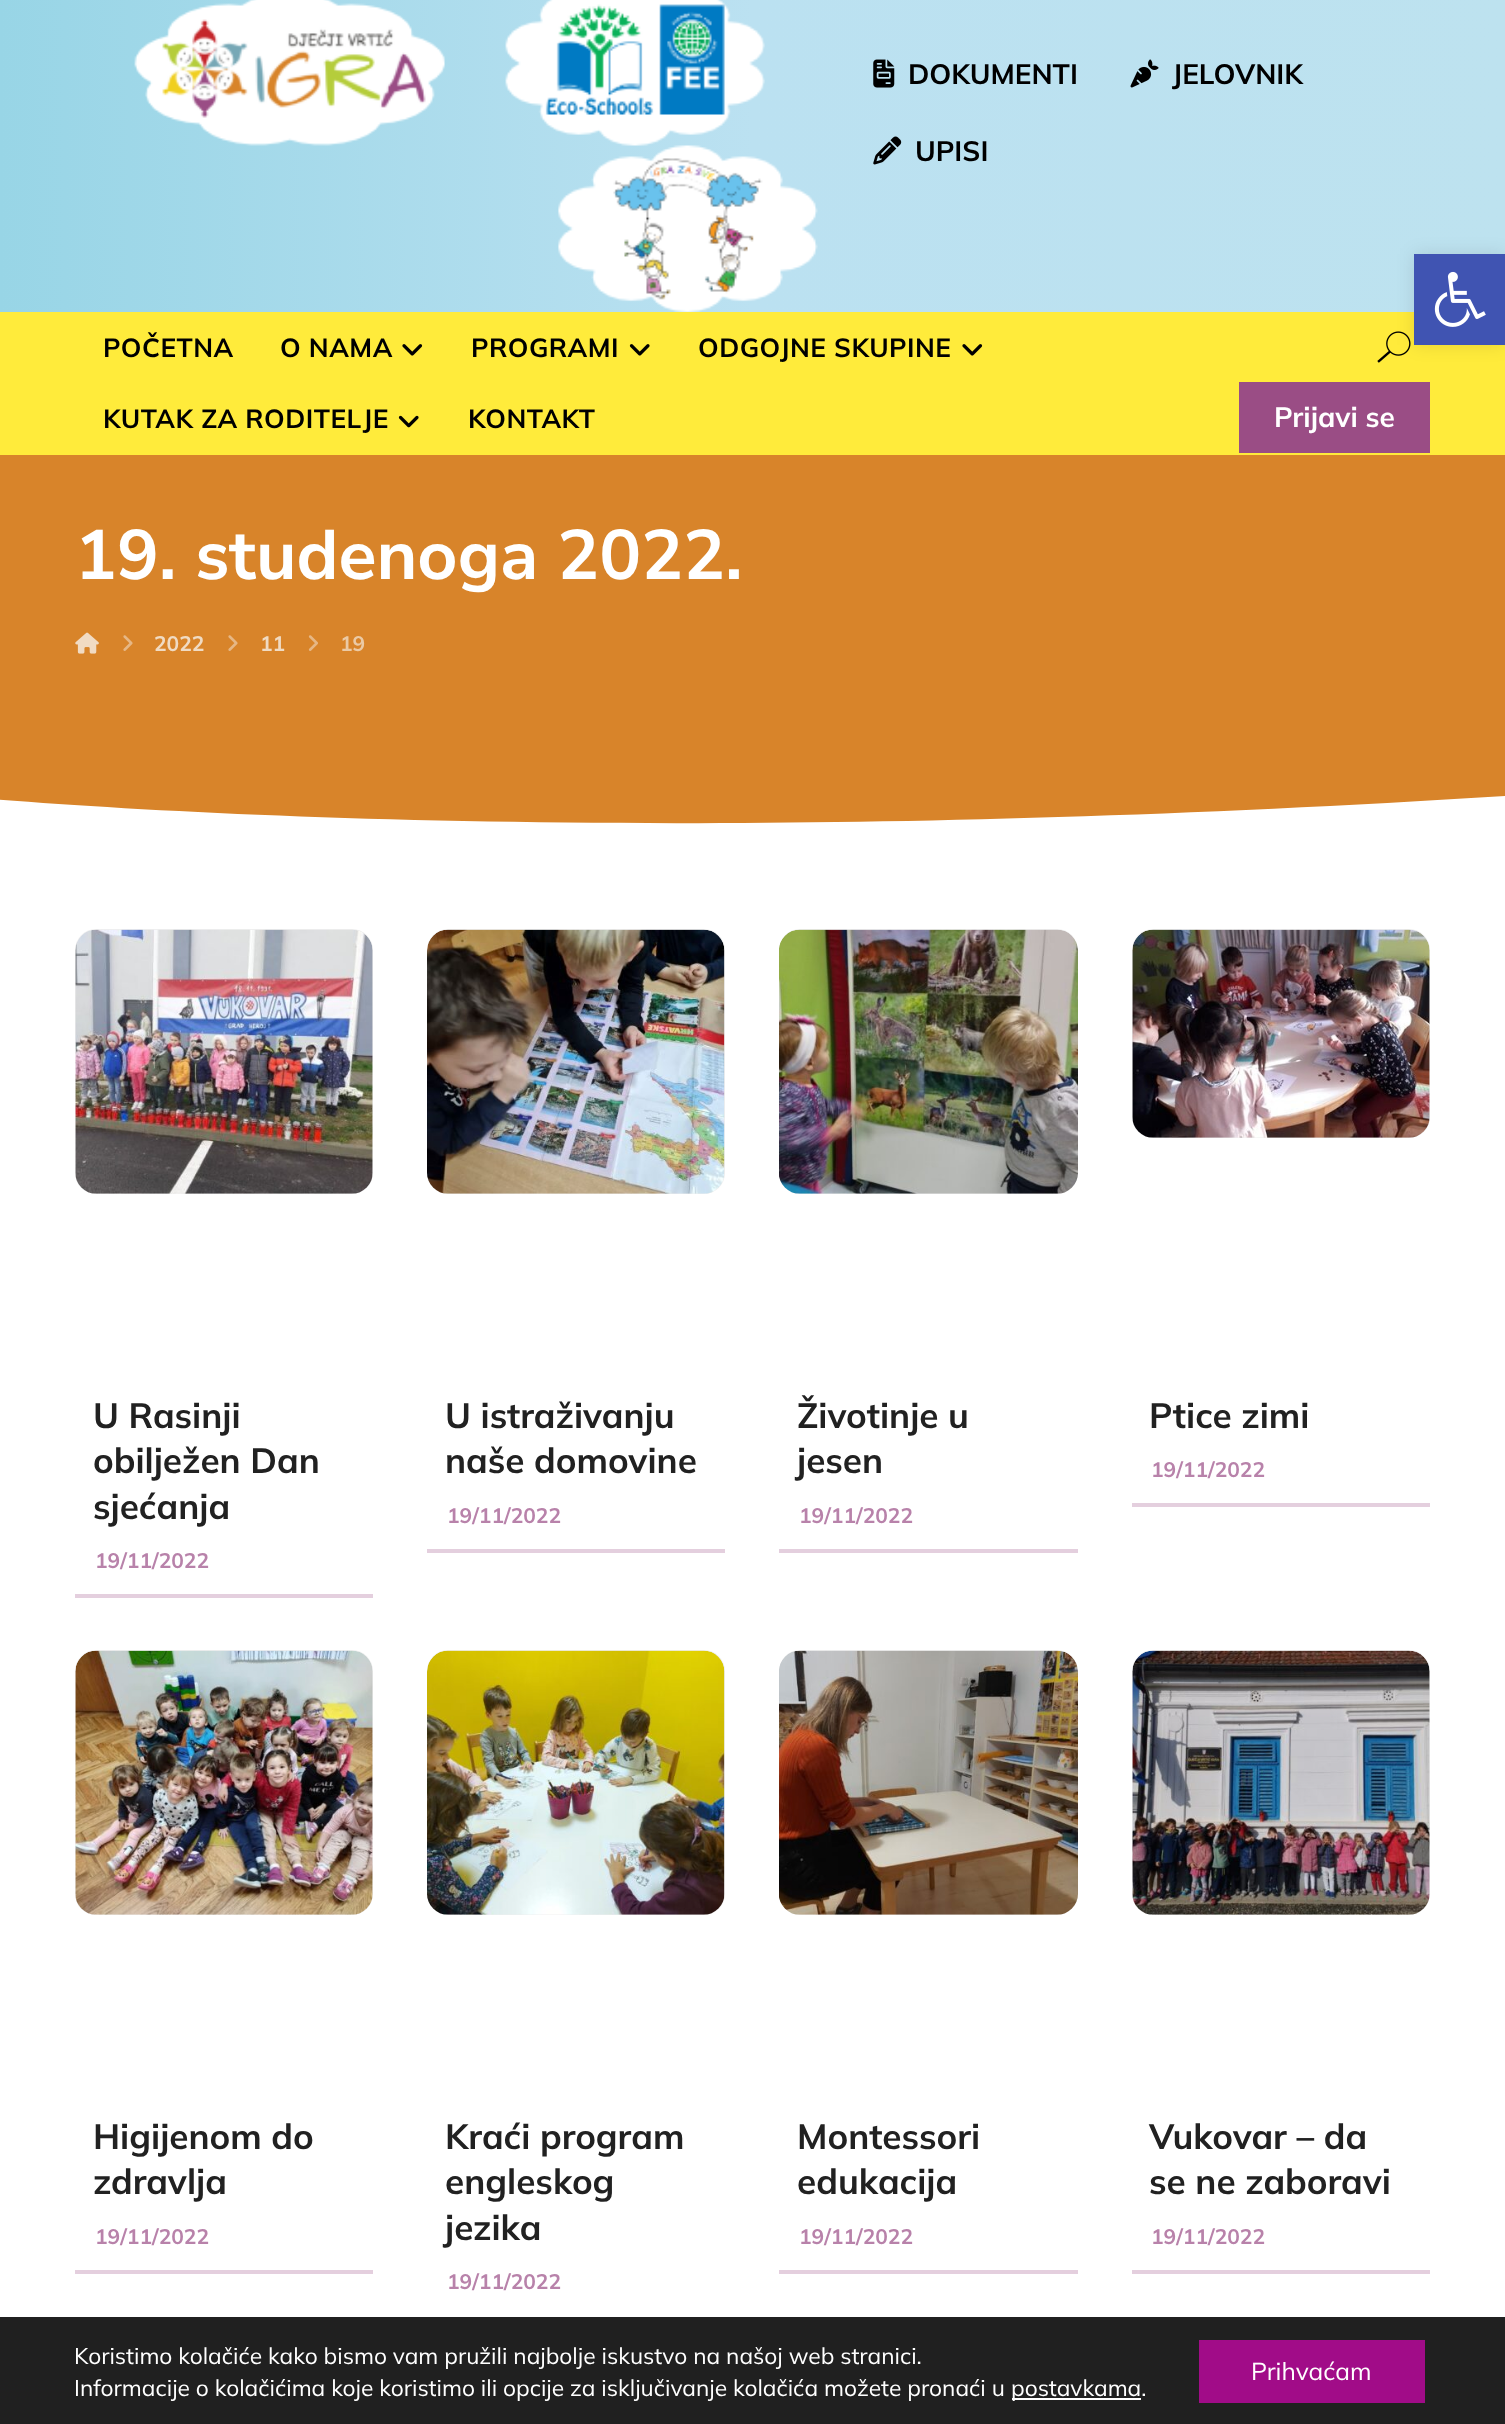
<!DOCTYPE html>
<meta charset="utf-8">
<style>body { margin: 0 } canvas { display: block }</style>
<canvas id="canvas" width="1505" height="2424"></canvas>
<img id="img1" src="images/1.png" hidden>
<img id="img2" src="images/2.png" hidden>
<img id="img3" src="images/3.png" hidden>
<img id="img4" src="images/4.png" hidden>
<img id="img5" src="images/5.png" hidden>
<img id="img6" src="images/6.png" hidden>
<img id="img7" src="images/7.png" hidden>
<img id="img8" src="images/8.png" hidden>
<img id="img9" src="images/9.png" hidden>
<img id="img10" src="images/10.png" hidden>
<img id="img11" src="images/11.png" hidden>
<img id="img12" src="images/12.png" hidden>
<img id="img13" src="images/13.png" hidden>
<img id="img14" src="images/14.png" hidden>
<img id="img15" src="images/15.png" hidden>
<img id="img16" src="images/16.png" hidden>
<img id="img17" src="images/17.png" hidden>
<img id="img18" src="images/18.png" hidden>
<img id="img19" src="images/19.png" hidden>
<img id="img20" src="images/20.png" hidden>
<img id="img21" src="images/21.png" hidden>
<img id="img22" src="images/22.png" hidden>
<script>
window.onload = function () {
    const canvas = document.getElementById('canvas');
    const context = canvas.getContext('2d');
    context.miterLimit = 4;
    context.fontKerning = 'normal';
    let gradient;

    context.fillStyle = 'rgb(255, 255, 255)';
    context.fillRect(0, 0, 1505, 2424);
    gradient = context.createLinearGradient(0, 146, 1505, 146);
    gradient.addColorStop(0, 'rgb(152, 213, 230)');
    gradient.addColorStop(0.5, 'rgb(187, 225, 241)');
    gradient.addColorStop(1, 'rgb(189, 226, 239)');
    context.fillStyle = gradient;
    context.fillRect(0, 0, 1505, 312);
    context.drawImage(document.getElementById('img1'), 134, 0, 311, 146);
    context.drawImage(document.getElementById('img2'), 505, 0, 260, 146);
    context.drawImage(document.getElementById('img3'), 558, 145, 260, 167);
    context.drawImage(document.getElementById('img4'), 873, 59, 22, 29);
    context.drawImage(document.getElementById('img5'), 1130, 59, 29, 29);
    context.drawImage(document.getElementById('img6'), 873, 136, 29, 29);
    context.fillStyle = 'rgb(255, 235, 59)';
    context.fillRect(0, 312, 1505, 143);
    context.drawImage(document.getElementById('img7'), 402, 344, 21, 12);
    context.drawImage(document.getElementById('img8'), 629, 344, 21, 12);
    context.drawImage(document.getElementById('img7'), 962, 344, 21, 12);
    context.drawImage(document.getElementById('img9'), 398, 415, 21, 13);
    context.drawImage(document.getElementById('img10'), 1377, 331, 34, 32);
    context.fillStyle = 'rgb(154, 77, 133)';
    context.fillRect(1239, 382, 191, 71);
    context.fillStyle = 'rgb(216, 132, 42)';
    context.fillRect(0, 455, 1505, 238);
    context.drawImage(document.getElementById('img11'), 75, 632, 24, 22);
    context.drawImage(document.getElementById('img12'), 123, 635, 10, 16);
    context.drawImage(document.getElementById('img12'), 228, 635, 10, 16);
    context.drawImage(document.getElementById('img13'), 308, 635, 10, 16);
    context.save();
    context.beginPath();
    context.rect(0, 693, 1505, 210);
    context.clip();
    context.beginPath();
    context.moveTo(-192, 781);
    context.bezierCurveTo(-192, 781, 610, 893, 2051, 752);
    context.bezierCurveTo(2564, 702, 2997, 671, 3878, 769);
    context.lineTo(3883, 689);
    context.lineTo(-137, 689);
    context.closePath();
    context.fill();
    context.restore();
    context.fillStyle = 'rgb(228, 207, 222)';
    context.fillRect(75, 1594, 298, 4);
    context.fillStyle = 'rgb(238, 238, 238)';
    context.beginPath();
    context.roundRect(75, 929, 298, 265, 21);
    context.fill();
    context.drawImage(document.getElementById('img14'), 75, 929, 298, 265);
    context.fillStyle = 'rgb(228, 207, 222)';
    context.fillRect(427, 1549, 298, 4);
    context.fillStyle = 'rgb(238, 238, 238)';
    context.beginPath();
    context.roundRect(427, 929, 298, 265, 21);
    context.fill();
    context.drawImage(document.getElementById('img15'), 427, 929, 298, 265);
    context.fillStyle = 'rgb(228, 207, 222)';
    context.fillRect(779, 1549, 299, 4);
    context.fillStyle = 'rgb(238, 238, 238)';
    context.beginPath();
    context.roundRect(779, 929, 299, 265, 21);
    context.fill();
    context.drawImage(document.getElementById('img16'), 779, 929, 299, 265);
    context.fillStyle = 'rgb(228, 207, 222)';
    context.fillRect(1132, 1503, 298, 4);
    context.fillStyle = 'rgb(237, 237, 237)';
    context.beginPath();
    context.roundRect(1132, 929, 298, 209, 21);
    context.fill();
    context.drawImage(document.getElementById('img17'), 1132, 929, 298, 209);
    context.fillStyle = 'rgb(228, 207, 222)';
    context.fillRect(75, 2270, 298, 4);
    context.fillStyle = 'rgb(238, 238, 238)';
    context.beginPath();
    context.roundRect(75, 1650, 298, 265, 21);
    context.fill();
    context.drawImage(document.getElementById('img18'), 75, 1650, 298, 265);
    context.beginPath();
    context.roundRect(427, 1650, 298, 265, 21);
    context.fill();
    context.drawImage(document.getElementById('img19'), 427, 1650, 298, 265);
    context.fillStyle = 'rgb(228, 207, 222)';
    context.fillRect(779, 2270, 299, 4);
    context.fillStyle = 'rgb(238, 238, 238)';
    context.beginPath();
    context.roundRect(779, 1650, 299, 265, 21);
    context.fill();
    context.drawImage(document.getElementById('img20'), 779, 1650, 299, 265);
    context.fillStyle = 'rgb(228, 207, 222)';
    context.fillRect(1132, 2270, 298, 4);
    context.fillStyle = 'rgb(238, 238, 238)';
    context.beginPath();
    context.roundRect(1132, 1650, 298, 265, 21);
    context.fill();
    context.drawImage(document.getElementById('img21'), 1132, 1650, 298, 265);
    context.fillStyle = 'rgba(0, 0, 0, 0.1)';
    context.filter = 'blur(9px)';
    context.beginPath();
    context.rect(1414, 254, 91, 91);
    context.fill();
    context.filter = 'none';
    context.fillStyle = 'rgb(64, 84, 178)';
    context.fillRect(1414, 254, 91, 91);
    context.drawImage(document.getElementById('img22'), 1434, 271, 52, 56);
    context.fillStyle = 'rgb(32, 32, 32)';
    context.fillRect(0, 2317, 1505, 107);
    context.fillStyle = 'rgb(255, 255, 255)';
    context.fillRect(1012, 2398, 129, 2);
    context.fillStyle = 'rgb(161, 12, 136)';
    context.fillRect(1199, 2340, 226, 63);
    context.font = 'bold 28px Mulish';
    context.fillStyle = 'rgb(0, 0, 0)';
    context.fillText('DOKUMENTI', 908, 84);
    context.fillText('JELOVNIK', 1172, 84);
    context.fillText('UPISI', 915, 161);
    context.letterSpacing = '0.5px';
    context.font = 'bold 26.25px Mulish';
    context.fillText('POČETNA', 103, 357);
    context.fillText('O NAMA', 280, 357);
    context.fillText('PROGRAMI', 471, 357);
    context.fillText('ODGOJNE SKUPINE', 698, 357);
    context.fillText('KUTAK ZA RODITELJE', 103, 428);
    context.fillText('KONTAKT', 468, 428);
    context.letterSpacing = '0px';
    context.font = 'bold 28px Mulish';
    context.fillStyle = 'rgb(255, 255, 255)';
    context.fillText('Prijavi se', 1274, 427);
    context.font = 'bold 70px Nunito Sans';
    context.fillText('19. studenoga 2022.', 75, 579);
    context.font = 'bold 21px Mulish';
    context.fillStyle = 'rgb(240, 219, 195)';
    context.fillText('2022', 154, 651);
    context.fillText('11', 260, 651);
    context.fillStyle = 'rgb(235, 202, 165)';
    context.fillText('19', 340, 651);
    context.font = 'bold 35px Mulish';
    context.fillStyle = 'rgb(33, 33, 33)';
    context.fillText('U Rasinji', 93, 1428);
    context.fillText('obilježen Dan', 93, 1473);
    context.fillText('sjećanja', 93, 1519);
    context.font = 'bold 21px Mulish';
    context.fillStyle = 'rgb(184, 130, 170)';
    context.fillText('19/11/2022', 95, 1568);
    context.font = 'bold 35px Mulish';
    context.fillStyle = 'rgb(33, 33, 33)';
    context.fillText('U istraživanju', 445, 1428);
    context.fillText('naše domovine', 445, 1473);
    context.font = 'bold 21px Mulish';
    context.fillStyle = 'rgb(184, 130, 170)';
    context.fillText('19/11/2022', 447, 1523);
    context.font = 'bold 35px Mulish';
    context.fillStyle = 'rgb(33, 33, 33)';
    context.fillText('Životinje u', 797, 1428);
    context.fillText('jesen', 797, 1473);
    context.font = 'bold 21px Mulish';
    context.fillStyle = 'rgb(184, 130, 170)';
    context.fillText('19/11/2022', 799, 1523);
    context.font = 'bold 35px Mulish';
    context.fillStyle = 'rgb(33, 33, 33)';
    context.fillText('Ptice zimi', 1149, 1428);
    context.font = 'bold 21px Mulish';
    context.fillStyle = 'rgb(184, 130, 170)';
    context.fillText('19/11/2022', 1151, 1477);
    context.font = 'bold 35px Mulish';
    context.fillStyle = 'rgb(33, 33, 33)';
    context.fillText('Higijenom do', 93, 2149);
    context.fillText('zdravlja', 93, 2194);
    context.font = 'bold 21px Mulish';
    context.fillStyle = 'rgb(184, 130, 170)';
    context.fillText('19/11/2022', 95, 2244);
    context.font = 'bold 35px Mulish';
    context.fillStyle = 'rgb(33, 33, 33)';
    context.fillText('Kraći program', 445, 2149);
    context.fillText('engleskog', 445, 2194);
    context.fillText('jezika', 445, 2240);
    context.font = 'bold 21px Mulish';
    context.fillStyle = 'rgb(184, 130, 170)';
    context.fillText('19/11/2022', 447, 2289);
    context.font = 'bold 35px Mulish';
    context.fillStyle = 'rgb(33, 33, 33)';
    context.fillText('Montessori', 797, 2149);
    context.fillText('edukacija', 797, 2194);
    context.font = 'bold 21px Mulish';
    context.fillStyle = 'rgb(184, 130, 170)';
    context.fillText('19/11/2022', 799, 2244);
    context.font = 'bold 35px Mulish';
    context.fillStyle = 'rgb(33, 33, 33)';
    context.fillText('Vukovar – da', 1149, 2149);
    context.fillText('se ne zaboravi', 1149, 2194);
    context.font = 'bold 21px Mulish';
    context.fillStyle = 'rgb(184, 130, 170)';
    context.fillText('19/11/2022', 1151, 2244);
    context.font = '22.75px Mulish';
    context.fillStyle = 'rgb(255, 255, 255)';
    context.fillText('Koristimo kolačiće kako bismo vam pružili najbolje iskustvo na našoj web stranici.', 74, 2364);
    context.fillText('Informacije o kolačićima koje koristimo ili opcije za isključivanje kolačića možete pronaći u', 74, 2396);
    context.fillText('postavkama.', 1011, 2396);
    context.font = '24.5px Mulish';
    context.fillText('Prihvaćam', 1251, 2380);
};
</script>
